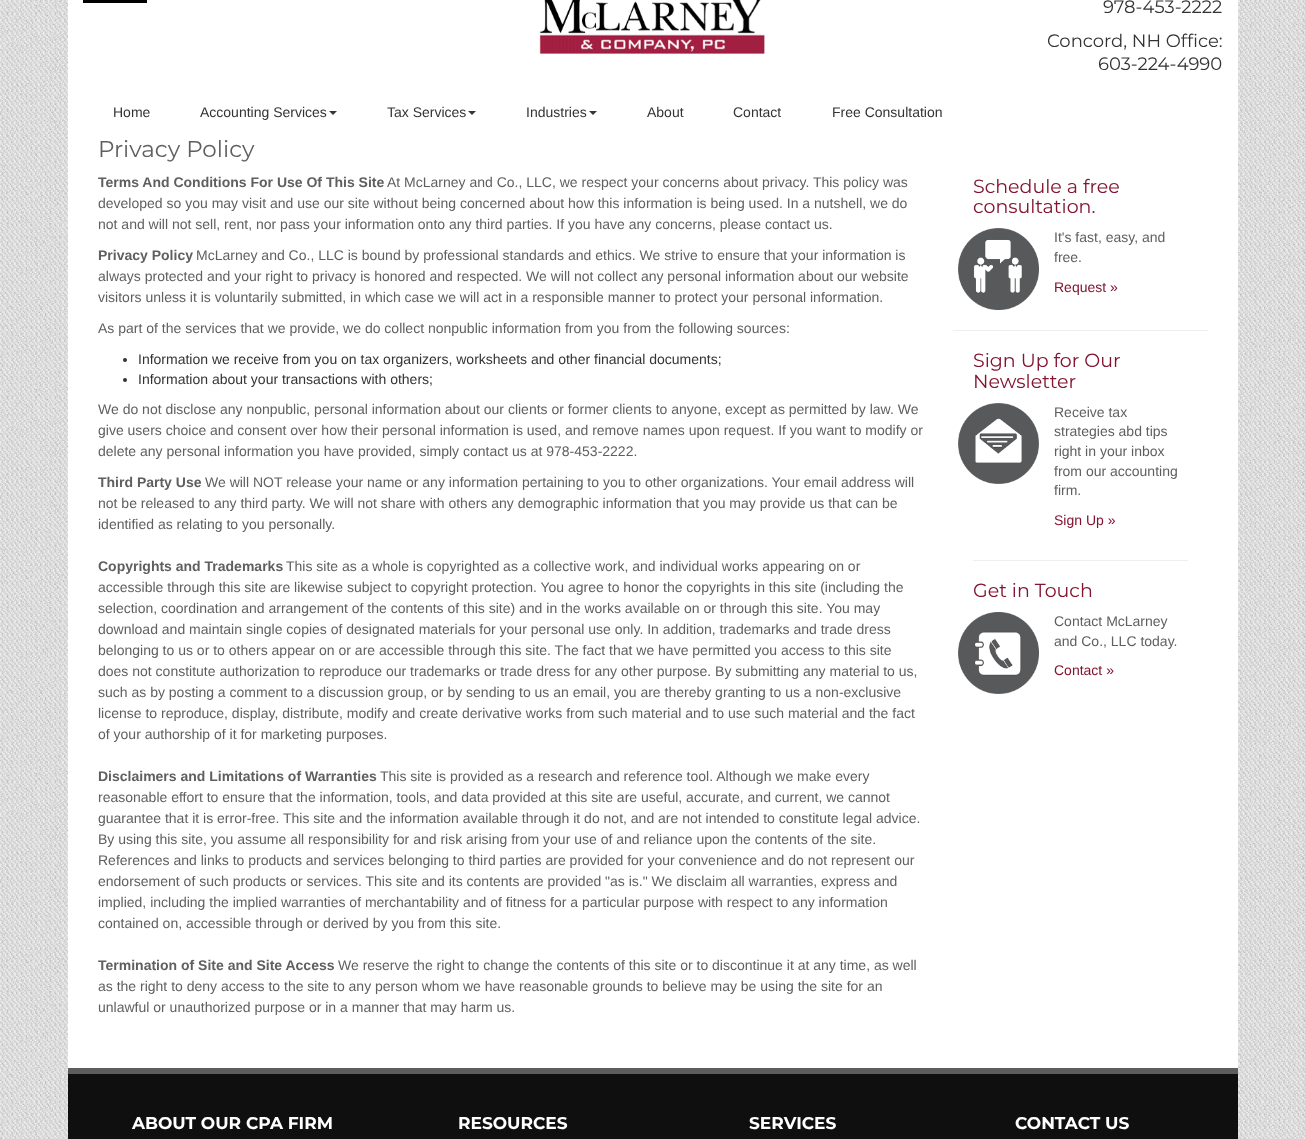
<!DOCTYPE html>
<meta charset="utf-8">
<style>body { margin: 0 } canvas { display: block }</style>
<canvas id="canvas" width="1305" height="1139"></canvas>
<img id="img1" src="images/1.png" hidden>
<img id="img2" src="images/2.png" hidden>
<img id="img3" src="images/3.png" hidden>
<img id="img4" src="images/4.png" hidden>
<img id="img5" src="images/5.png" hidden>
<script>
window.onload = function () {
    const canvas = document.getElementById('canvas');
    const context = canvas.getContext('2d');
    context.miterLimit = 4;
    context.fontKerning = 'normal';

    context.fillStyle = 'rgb(255, 255, 255)';
    context.fillRect(0, 0, 1305, 1139);
    context.drawImage(document.getElementById('img1'), 0, 0, 1305, 1139);
    context.fillRect(68, 0, 1170, 87);
    context.fillStyle = 'rgb(0, 0, 0)';
    context.fillRect(83, 0, 64, 3);
    context.drawImage(document.getElementById('img2'), 539, 0, 226, 54);
    context.fillStyle = 'rgb(255, 255, 255)';
    context.fillRect(68, 87, 1170, 981);
    context.fillStyle = 'rgb(54, 54, 54)';
    context.beginPath();
    context.moveTo(329, 111);
    context.lineTo(337, 111);
    context.lineTo(333, 115);
    context.closePath();
    context.fill();
    context.beginPath();
    context.moveTo(468, 111);
    context.lineTo(476, 111);
    context.lineTo(472, 115);
    context.closePath();
    context.fill();
    context.beginPath();
    context.moveTo(589, 111);
    context.lineTo(597, 111);
    context.lineTo(593, 115);
    context.closePath();
    context.fill();
    context.fillStyle = 'rgb(51, 51, 51)';
    context.beginPath();
    context.arc(125, 360, 2, 0, 2 * Math.PI);
    context.fill();
    context.beginPath();
    context.arc(125, 380, 2, 0, 2 * Math.PI);
    context.fill();
    context.drawImage(document.getElementById('img3'), 958, 228, 81, 82);
    context.fillStyle = 'rgb(238, 238, 238)';
    context.fillRect(953, 330, 255, 1);
    context.drawImage(document.getElementById('img4'), 958, 403, 81, 81);
    context.fillRect(973, 560, 215, 1);
    context.drawImage(document.getElementById('img5'), 958, 612, 81, 82);
    context.fillStyle = 'rgb(15, 15, 15)';
    context.fillRect(68, 1074, 1170, 65);
    context.fillStyle = 'rgb(93, 93, 93)';
    context.fillRect(68, 1068, 1170, 6);
    context.font = '18px Montserrat';
    context.fillStyle = 'rgb(51, 51, 51)';
    context.fillText('978-453-2222', 1103, 13);
    context.fillText('Concord, NH Office:', 1047, 47);
    context.fillText('603-224-4990', 1098, 70);
    context.font = '14px Liberation Sans';
    context.fillText('Home', 113, 117);
    context.fillText('Accounting Services', 200, 117);
    context.fillText('Tax Services', 387, 117);
    context.fillText('Industries', 526, 117);
    context.fillText('About', 647, 117);
    context.fillText('Contact', 733, 117);
    context.fillText('Free Consultation', 832, 117);
    context.font = '23px Montserrat';
    context.fillStyle = 'rgb(95, 95, 95)';
    context.fillText('Privacy Policy', 98, 157);
    context.font = 'bold 14px Liberation Sans';
    context.fillText('Terms And Conditions For Use Of This Site', 98, 187);
    context.font = '14px Liberation Sans';
    context.fillText('At McLarney and Co., LLC, we respect your concerns about privacy. This policy was', 387, 187);
    context.fillText('developed so you may visit and use our site without being concerned about how this information is being used. In a nutshell, we do', 98, 208);
    context.fillText('not and will not sell, rent, nor pass your information onto any third parties. If you have any concerns, please contact us.', 98, 229);
    context.font = 'bold 14px Liberation Sans';
    context.fillText('Privacy Policy', 98, 260);
    context.font = '14px Liberation Sans';
    context.fillText('McLarney and Co., LLC is bound by professional standards and ethics. We strive to ensure that your information is', 196, 260);
    context.fillText('always protected and your right to privacy is honored and respected. We will not collect any personal information about our website', 98, 281);
    context.fillText('visitors unless it is voluntarily submitted, in which case we will act in a responsible manner to protect your personal information.', 98, 302);
    context.fillText('As part of the services that we provide, we do collect nonpublic information from you from the following sources:', 98, 333);
    context.fillStyle = 'rgb(51, 51, 51)';
    context.fillText('Information we receive from you on tax organizers, worksheets and other financial documents;', 138, 364);
    context.fillText('Information about your transactions with others;', 138, 384);
    context.fillStyle = 'rgb(95, 95, 95)';
    context.fillText('We do not disclose any nonpublic, personal information about our clients or former clients to anyone, except as permitted by law. We', 98, 414);
    context.fillText('give users choice and consent over how their personal information is used, and remove names upon request. If you want to modify or', 98, 435);
    context.fillText('delete any personal information you have provided, simply contact us at 978-453-2222.', 98, 456);
    context.font = 'bold 14px Liberation Sans';
    context.fillText('Third Party Use', 98, 487);
    context.font = '14px Liberation Sans';
    context.fillText('We will NOT release your name or any information pertaining to you to other organizations. Your email address will', 205, 487);
    context.fillText('not be released to any third party. We will not share with others any demographic information that you may provide us that can be', 98, 508);
    context.fillText('identified as relating to you personally.', 98, 529);
    context.font = 'bold 14px Liberation Sans';
    context.fillText('Copyrights and Trademarks', 98, 571);
    context.font = '14px Liberation Sans';
    context.fillText('This site as a whole is copyrighted as a collective work, and individual works appearing on or', 286, 571);
    context.fillText('accessible through this site are likewise subject to copyright protection. You agree to honor the copyrights in this site (including the', 98, 592);
    context.fillText('selection, coordination and arrangement of the contents of this site) and in the works available on or through this site. You may', 98, 613);
    context.fillText('download and maintain single copies of designated materials for your personal use only. In addition, trademarks and trade dress', 98, 634);
    context.fillText('belonging to us or to others appear on or are accessible through this site. The fact that we have permitted you access to this site', 98, 655);
    context.fillText('does not constitute authorization to reproduce our trademarks or trade dress for any other purpose. By submitting any material to us,', 98, 676);
    context.fillText('such as by posting a comment to a discussion group, or by sending to us an email, you are thereby granting to us a non-exclusive', 98, 697);
    context.fillText('license to reproduce, display, distribute, modify and create derivative works from such material and to use such material and the fact', 98, 718);
    context.fillText('of your authorship of it for marketing purposes.', 98, 739);
    context.font = 'bold 14px Liberation Sans';
    context.fillText('Disclaimers and Limitations of Warranties', 98, 781);
    context.font = '14px Liberation Sans';
    context.fillText('This site is provided as a research and reference tool. Although we make every', 380, 781);
    context.fillText('reasonable effort to ensure that the information, tools, and data provided at this site are useful, accurate, and current, we cannot', 98, 802);
    context.fillText('guarantee that it is error-free. This site and the information available through it do not, and are not intended to constitute legal advice.', 98, 823);
    context.fillText('By using this site, you assume all responsibility for and risk arising from your use of and reliance upon the contents of the site.', 98, 844);
    context.fillText('References and links to products and services belonging to third parties are provided for your convenience and do not represent our', 98, 865);
    context.fillText('endorsement of such products or services. This site and its contents are provided "as is." We disclaim all warranties, express and', 98, 886);
    context.fillText('implied, including the implied warranties of merchantability and of fitness for a particular purpose with respect to any information', 98, 907);
    context.fillText('contained on, accessible through or derived by you from this site.', 98, 928);
    context.font = 'bold 14px Liberation Sans';
    context.fillText('Termination of Site and Site Access', 98, 970);
    context.font = '14px Liberation Sans';
    context.fillText('We reserve the right to change the contents of this site or to discontinue it at any time, as well', 338, 970);
    context.fillText('as the right to deny access to the site to any person whom we have reasonable grounds to believe may be using the site for an', 98, 991);
    context.fillText('unlawful or unauthorized purpose or in a manner that may harm us.', 98, 1012);
    context.font = '19px Montserrat';
    context.fillStyle = 'rgb(130, 20, 49)';
    context.fillText('Schedule a free', 973, 193);
    context.fillText('consultation.', 973, 213);
    context.font = '14px Liberation Sans';
    context.fillStyle = 'rgb(95, 95, 95)';
    context.fillText('It\'s fast, easy, and', 1054, 242);
    context.fillText('free.', 1054, 262);
    context.fillStyle = 'rgb(130, 20, 49)';
    context.fillText('Request »', 1054, 292);
    context.font = '19px Montserrat';
    context.fillText('Sign Up for Our', 973, 367);
    context.fillText('Newsletter', 973, 388);
    context.font = '14px Liberation Sans';
    context.fillStyle = 'rgb(95, 95, 95)';
    context.fillText('Receive tax', 1054, 417);
    context.fillText('strategies abd tips', 1054, 436);
    context.fillText('right in your inbox', 1054, 456);
    context.fillText('from our accounting', 1054, 476);
    context.fillText('firm.', 1054, 495);
    context.fillStyle = 'rgb(130, 20, 49)';
    context.fillText('Sign Up »', 1054, 525);
    context.font = '19px Montserrat';
    context.fillText('Get in Touch', 973, 597);
    context.font = '14px Liberation Sans';
    context.fillStyle = 'rgb(95, 95, 95)';
    context.fillText('Contact McLarney', 1054, 626);
    context.fillText('and Co., LLC today.', 1054, 646);
    context.fillStyle = 'rgb(130, 20, 49)';
    context.fillText('Contact »', 1054, 675);
    context.font = 'bold 17px Montserrat';
    context.fillStyle = 'rgb(255, 255, 255)';
    context.fillText('ABOUT OUR CPA FIRM', 132, 1129);
    context.fillText('RESOURCES', 458, 1129);
    context.fillText('SERVICES', 749, 1129);
    context.fillText('CONTACT US', 1015, 1129);
};
</script>
